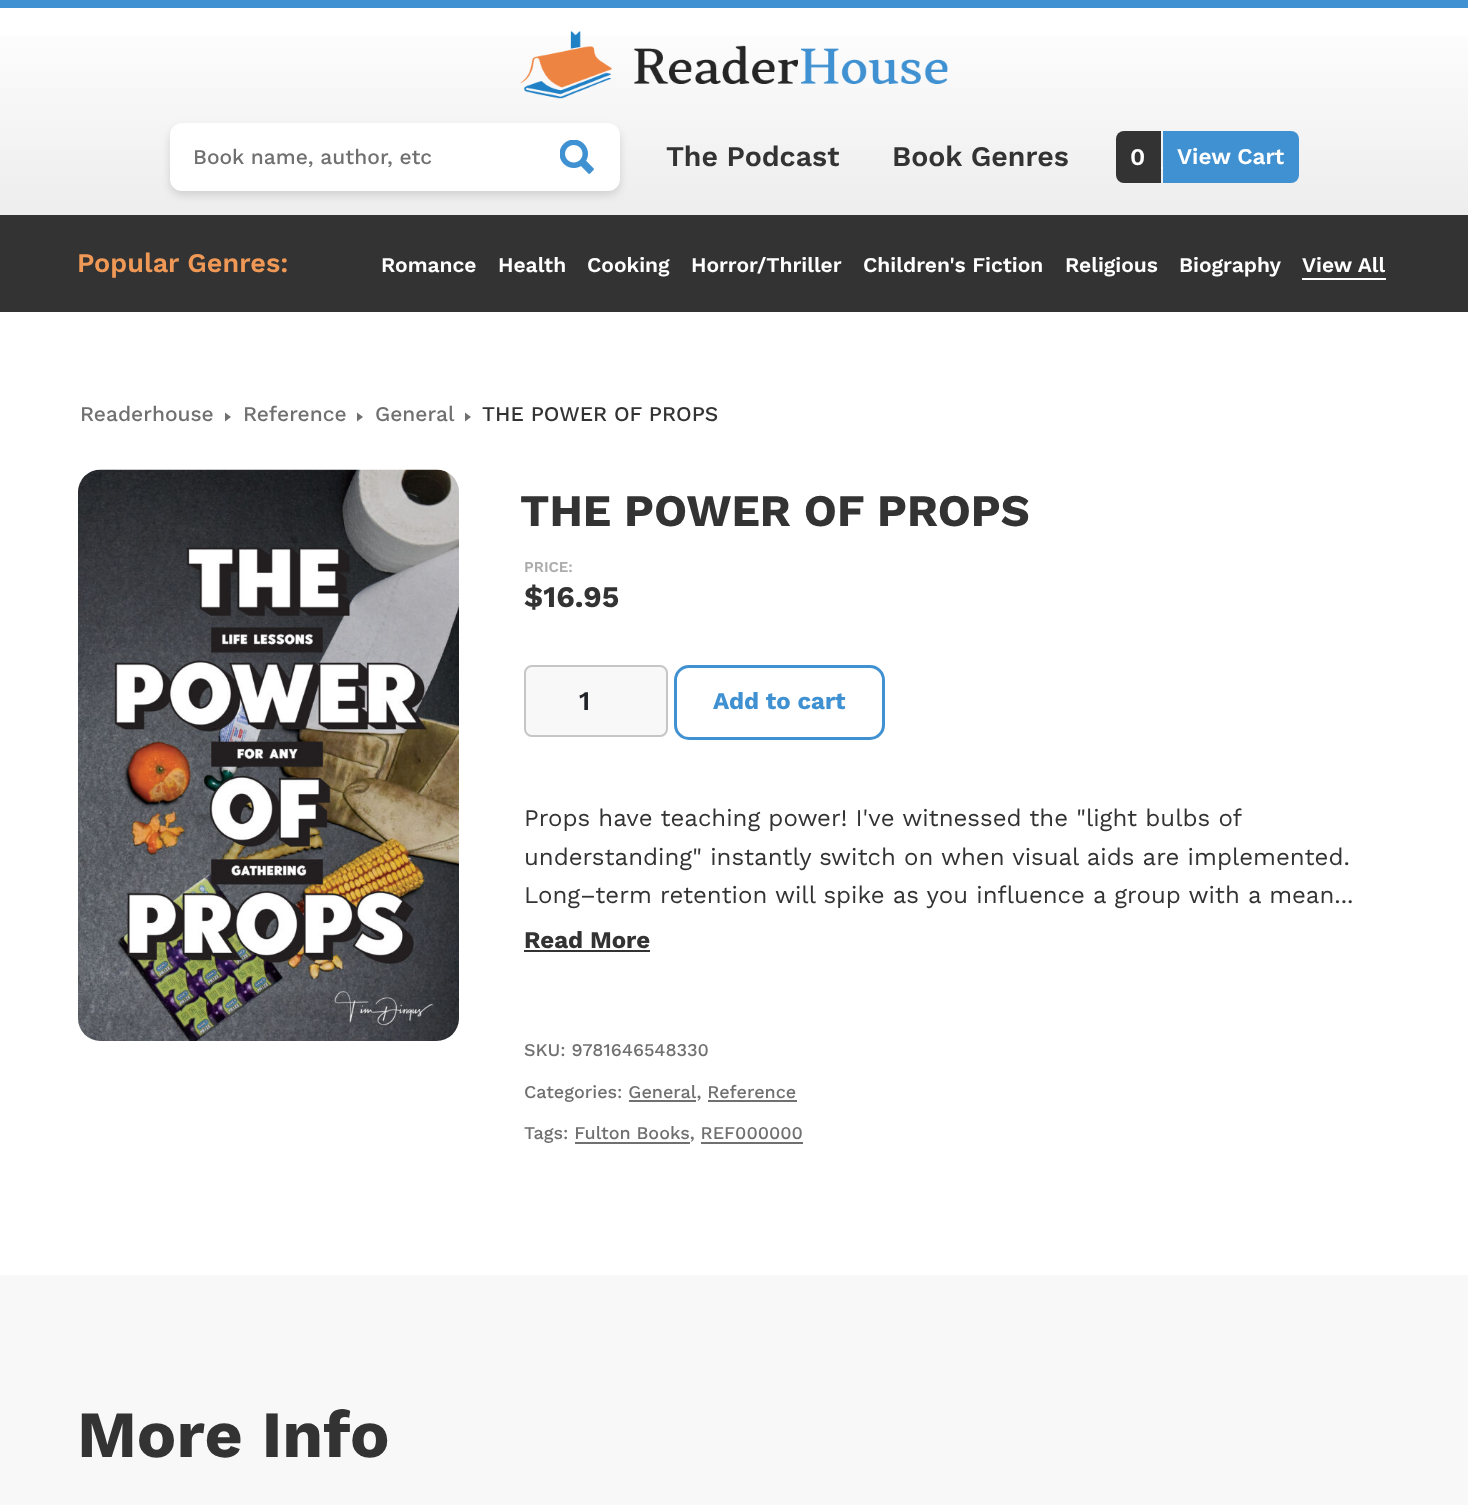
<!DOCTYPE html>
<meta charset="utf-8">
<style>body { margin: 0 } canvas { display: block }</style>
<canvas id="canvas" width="1468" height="1505"></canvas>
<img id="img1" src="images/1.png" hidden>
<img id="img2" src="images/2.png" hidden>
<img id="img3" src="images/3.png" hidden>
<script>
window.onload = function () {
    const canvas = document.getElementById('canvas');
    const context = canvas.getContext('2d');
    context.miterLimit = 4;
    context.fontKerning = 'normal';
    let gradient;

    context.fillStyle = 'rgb(255, 255, 255)';
    context.fillRect(0, 0, 1468, 1505);
    context.fillStyle = 'rgb(64, 145, 209)';
    context.fillRect(0, 0, 1468, 8);
    gradient = context.createLinearGradient(734, 7.5, 734, 215);
    gradient.addColorStop(0, 'rgb(255, 255, 255)');
    gradient.addColorStop(1, 'rgb(237, 237, 237)');
    context.fillStyle = gradient;
    context.fillRect(0, 36, 1468, 179);
    context.drawImage(document.getElementById('img1'), 520, 31, 428, 68);
    context.fillStyle = 'rgba(0, 0, 0, 0.13)';
    context.filter = 'blur(4.5px)';
    context.beginPath();
    context.roundRect(170, 128, 450, 67, 12);
    context.fill();
    context.filter = 'none';
    context.fillStyle = 'rgb(255, 255, 255)';
    context.beginPath();
    context.roundRect(170, 123, 450, 68, 12);
    context.fill();
    context.drawImage(document.getElementById('img2'), 560, 140, 34, 34);
    context.fillStyle = 'rgb(51, 51, 51)';
    context.beginPath();
    context.roundRect(1116, 131, 45, 52, [8, 0, 0, 8]);
    context.fill();
    context.fillStyle = 'rgb(255, 255, 255)';
    context.fillRect(1161, 167, 8, 2);
    context.fillStyle = 'rgb(64, 145, 209)';
    context.beginPath();
    context.roundRect(1163, 131, 136, 52, [0, 8, 8, 0]);
    context.fill();
    context.fillStyle = 'rgb(51, 51, 51)';
    context.fillRect(0, 215, 1468, 97);
    context.fillStyle = 'rgb(255, 255, 255)';
    context.fillRect(1302, 278, 84, 2);
    context.fillStyle = 'rgb(112, 112, 112)';
    context.beginPath();
    context.moveTo(225, 421.5);
    context.lineTo(225, 412.5);
    context.lineTo(231, 417);
    context.closePath();
    context.fill();
    context.beginPath();
    context.moveTo(357, 421.5);
    context.lineTo(357, 412.5);
    context.lineTo(363, 417);
    context.closePath();
    context.fill();
    context.beginPath();
    context.moveTo(465, 421.5);
    context.lineTo(465, 412.5);
    context.lineTo(471, 417);
    context.closePath();
    context.fill();
    context.drawImage(document.getElementById('img3'), 78, 469, 381, 572);
    context.fillStyle = 'rgb(248, 248, 248)';
    context.beginPath();
    context.roundRect(525, 666, 142, 70, 7);
    context.fill();
    context.strokeStyle = 'rgb(198, 198, 198)';
    context.lineWidth = 2;
    context.stroke();
    context.beginPath();
    context.roundRect(675.5, 666.5, 208, 72, 13.5);
    context.strokeStyle = 'rgb(64, 145, 209)';
    context.lineWidth = 3;
    context.stroke();
    context.fillStyle = 'rgb(51, 51, 51)';
    context.fillRect(524, 950, 126, 2);
    context.fillStyle = 'rgb(112, 112, 112)';
    context.fillRect(629, 1100, 67, 2);
    context.fillRect(708, 1100, 89, 2);
    context.fillRect(575, 1142, 115, 2);
    context.fillRect(701, 1142, 102, 2);
    context.fillStyle = 'rgb(248, 248, 248)';
    context.fillRect(0, 1275, 1468, 230);
    context.font = '500 21px Work Sans';
    context.fillStyle = 'rgb(112, 112, 112)';
    context.fillText('Book name, author, etc', 193, 164);
    context.font = '600 28.5px Work Sans';
    context.fillStyle = 'rgb(51, 51, 51)';
    context.fillText('The Podcast', 666, 166);
    context.fillText('Book Genres', 892, 166);
    context.font = '600 24px Work Sans';
    context.fillStyle = 'rgb(255, 255, 255)';
    context.fillText('0', 1130, 165);
    context.font = '600 22.5px Work Sans';
    context.fillText('View Cart', 1177, 164);
    context.font = '600 27px Work Sans';
    context.fillStyle = 'rgb(240, 153, 86)';
    context.fillText('Popular Genres:', 77, 272);
    context.font = '600 21px Work Sans';
    context.fillStyle = 'rgb(255, 255, 255)';
    context.fillText('Romance', 381, 272);
    context.fillText('Health', 498, 272);
    context.fillText('Cooking', 587, 272);
    context.fillText('Horror/Thriller', 691, 272);
    context.fillText('Children\'s Fiction', 863, 272);
    context.fillText('Religious', 1065, 272);
    context.fillText('Biography', 1179, 272);
    context.fillText('View All', 1302, 272);
    context.font = '500 21px Work Sans';
    context.fillStyle = 'rgb(112, 112, 112)';
    context.fillText('Readerhouse', 80, 421);
    context.fillText('Reference', 243, 421);
    context.fillText('General', 375, 421);
    context.fillStyle = 'rgb(51, 51, 51)';
    context.fillText('THE POWER OF PROPS', 482, 421);
    context.font = 'bold 45px Work Sans';
    context.fillText('THE POWER OF PROPS', 520, 526);
    context.font = '600 15px Work Sans';
    context.fillStyle = 'rgb(172, 172, 172)';
    context.fillText('PRICE:', 524, 572);
    context.font = 'bold 30px Work Sans';
    context.fillStyle = 'rgb(51, 51, 51)';
    context.fillText('$16.95', 524, 607);
    context.font = '600 27px Work Sans';
    context.fillStyle = 'rgb(33, 37, 41)';
    context.fillText('1', 579, 710);
    context.font = 'bold 24px Work Sans';
    context.fillStyle = 'rgb(64, 145, 209)';
    context.fillText('Add to cart', 713, 709);
    context.font = '24px Work Sans';
    context.fillStyle = 'rgb(51, 51, 51)';
    context.fillText('Props have teaching power! I\'ve witnessed the "light bulbs of', 524, 826);
    context.fillText('understanding" instantly switch on when visual aids are implemented.', 524, 865);
    context.fillText('Long–term retention will spike as you influence a group with a mean...', 524, 903);
    context.font = 'bold 24px Work Sans';
    context.fillText('Read More', 524, 948);
    context.font = '500 18px Work Sans';
    context.fillStyle = 'rgb(112, 112, 112)';
    context.fillText('SKU: 9781646548330', 524, 1056);
    context.fillText('Categories: General, Reference', 524, 1098);
    context.fillText('Tags: Fulton Books, REF000000', 524, 1139);
    context.font = 'bold 66px Work Sans';
    context.fillStyle = 'rgb(51, 51, 51)';
    context.fillText('More Info', 77, 1457);
};
</script>
